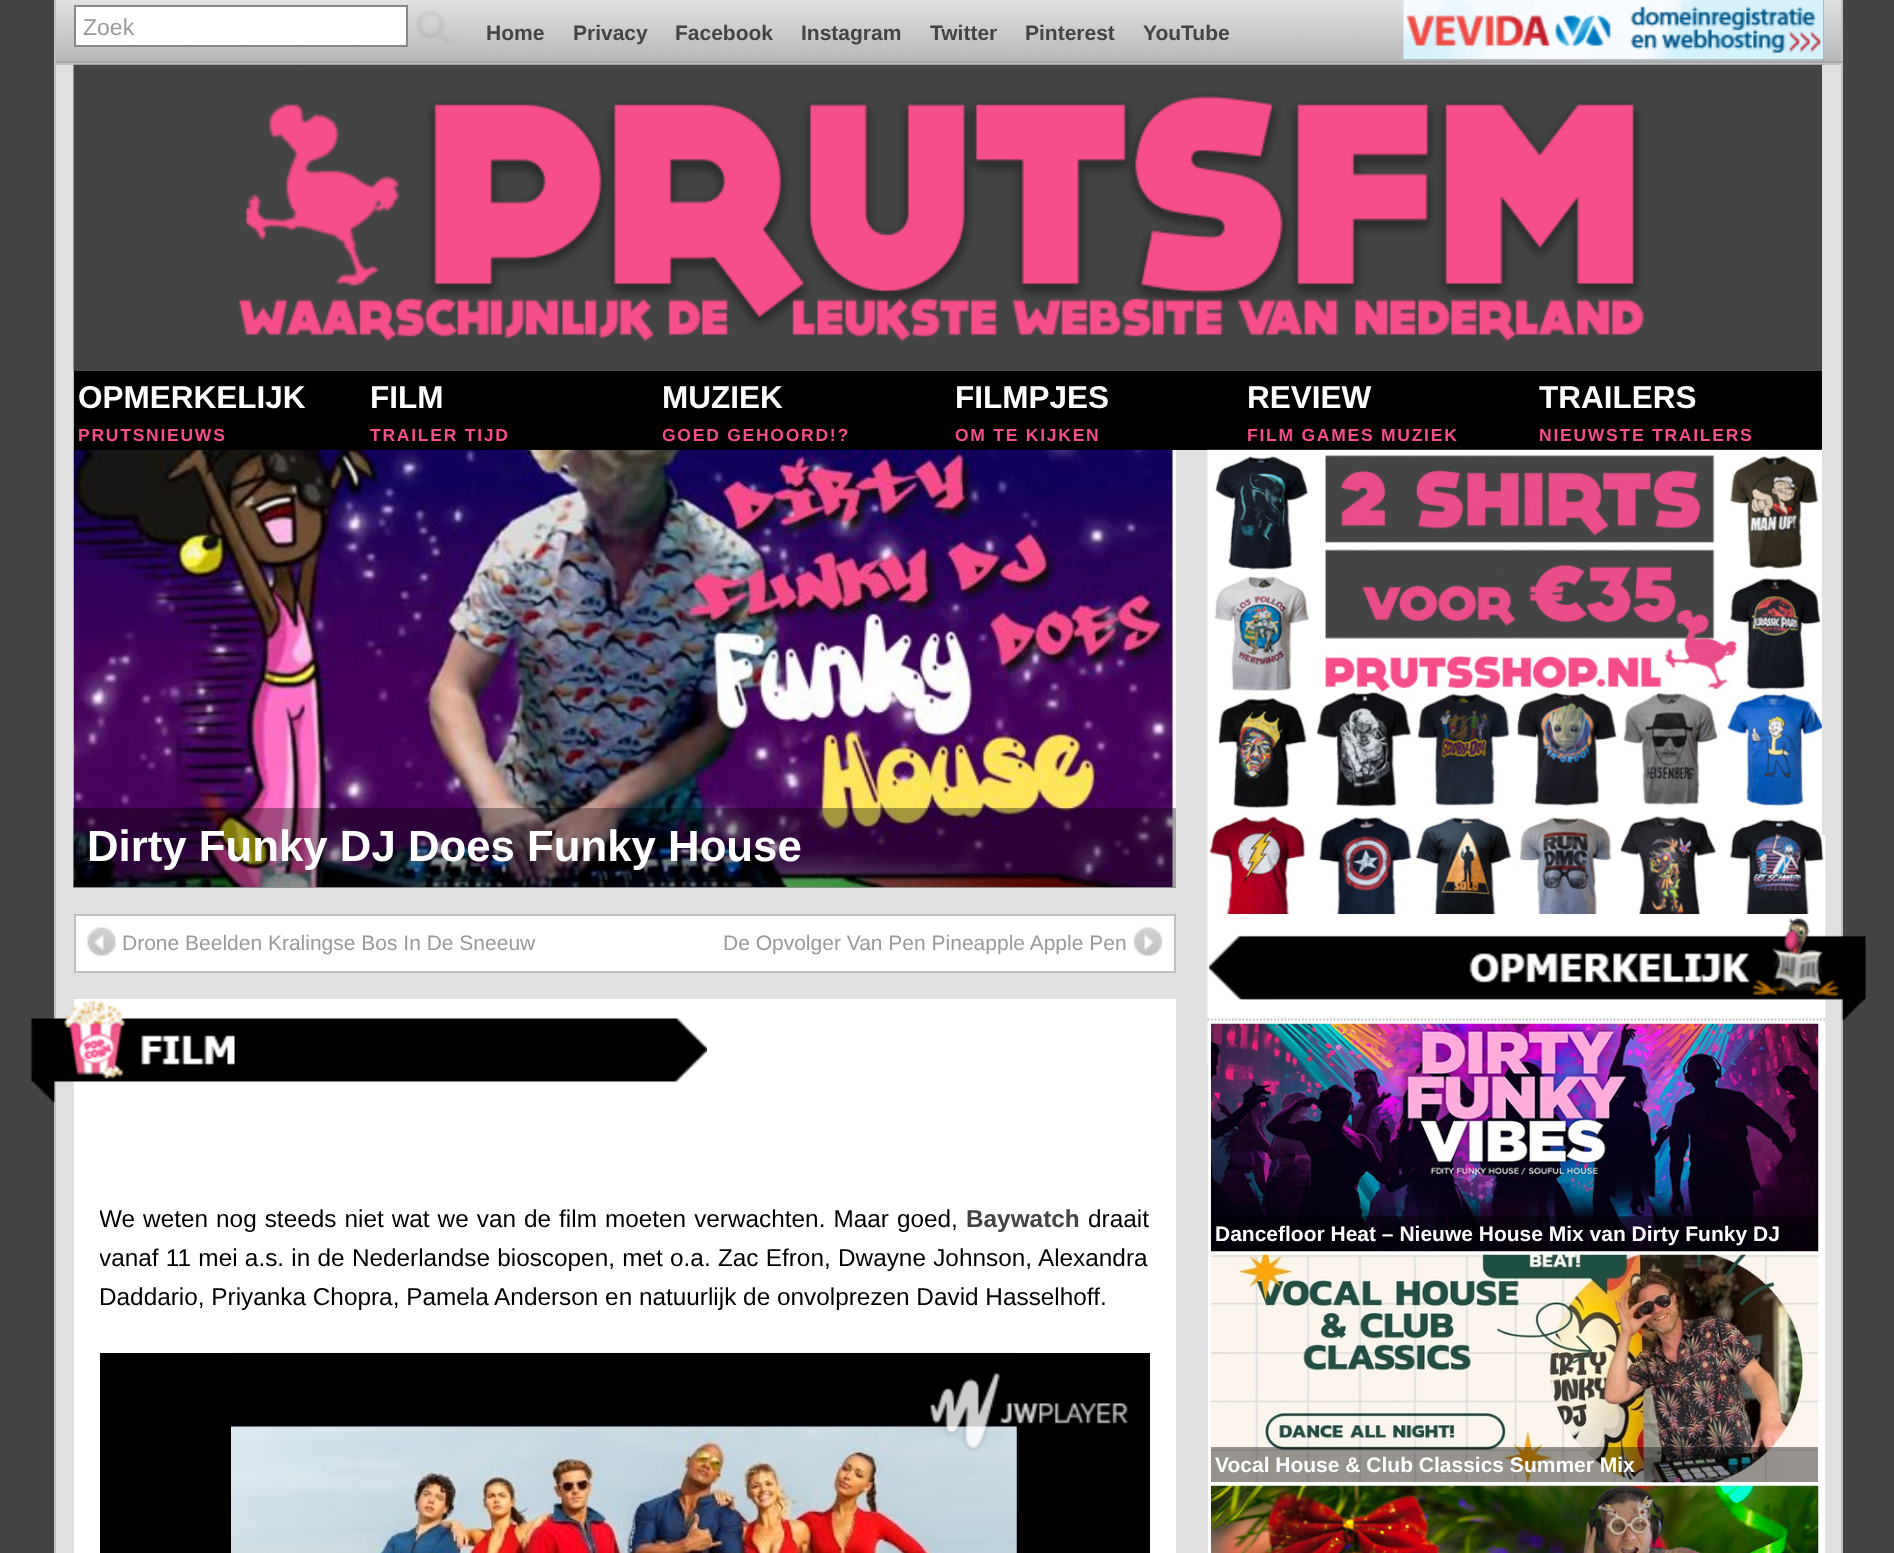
<!DOCTYPE html>
<meta charset="utf-8">
<style>body { margin: 0 } canvas { display: block }</style>
<canvas id="canvas" width="1894" height="1553"></canvas>
<img id="img1" src="images/1.png" hidden>
<img id="img2" src="images/2.png" hidden>
<img id="img3" src="images/3.png" hidden>
<img id="img4" src="images/4.png" hidden>
<img id="img5" src="images/5.png" hidden>
<img id="img6" src="images/6.png" hidden>
<img id="img7" src="images/7.png" hidden>
<img id="img8" src="images/8.png" hidden>
<img id="img9" src="images/9.png" hidden>
<img id="img10" src="images/10.png" hidden>
<img id="img11" src="images/11.png" hidden>
<img id="img12" src="images/12.png" hidden>
<img id="img13" src="images/13.png" hidden>
<img id="img14" src="images/14.png" hidden>
<img id="img15" src="images/15.png" hidden>
<img id="img16" src="images/16.png" hidden>
<img id="img17" src="images/17.png" hidden>
<img id="img18" src="images/22.png" hidden>
<img id="img19" src="images/18.png" hidden>
<img id="img20" src="images/29.png" hidden>
<img id="img21" src="images/19.png" hidden>
<img id="img22" src="images/20.png" hidden>
<img id="img23" src="images/21.png" hidden>
<img id="img24" src="images/23.png" hidden>
<img id="img25" src="images/24.png" hidden>
<img id="img26" src="images/25.png" hidden>
<img id="img27" src="images/26.png" hidden>
<img id="img28" src="images/27.png" hidden>
<img id="img29" src="images/28.png" hidden>
<img id="img30" src="images/30.png" hidden>
<img id="img31" src="images/31.png" hidden>
<img id="img32" src="images/32.png" hidden>
<img id="img33" src="images/33.png" hidden>
<script>
window.onload = function () {
    const canvas = document.getElementById('canvas');
    const context = canvas.getContext('2d');
    context.miterLimit = 4;
    context.fontKerning = 'normal';

    context.fillStyle = 'rgb(68, 68, 68)';
    context.fillRect(0, 0, 1894, 1553);
    context.drawImage(document.getElementById('img1'), 56, 0, 1785, 61);
    context.fillStyle = 'rgb(192, 192, 192)';
    context.fillRect(1841, 0, 2, 63);
    context.fillStyle = 'rgb(165, 167, 170)';
    context.fillRect(54, 61, 1789, 2);
    context.fillStyle = 'rgb(192, 192, 192)';
    context.fillRect(54, 0, 2, 63);
    context.fillStyle = 'rgb(255, 255, 255)';
    context.beginPath();
    context.rect(75, 6, 332, 40);
    context.fill();
    context.strokeStyle = 'rgb(136, 136, 136)';
    context.lineWidth = 2;
    context.stroke();
    context.drawImage(document.getElementById('img2'), 416, 10, 34, 34);
    context.drawImage(document.getElementById('img3'), 473, 61, 85, 1);
    context.drawImage(document.getElementById('img4'), 473, 0, 85, 61);
    context.drawImage(document.getElementById('img5'), 558, 0, 104, 62);
    context.drawImage(document.getElementById('img6'), 558, 0, 104, 61);
    context.drawImage(document.getElementById('img7'), 661, 0, 127, 62);
    context.drawImage(document.getElementById('img8'), 661, 0, 127, 61);
    context.drawImage(document.getElementById('img9'), 787, 0, 128, 62);
    context.drawImage(document.getElementById('img10'), 787, 0, 128, 61);
    context.drawImage(document.getElementById('img11'), 915, 0, 97, 62);
    context.drawImage(document.getElementById('img12'), 915, 0, 97, 61);
    context.drawImage(document.getElementById('img13'), 1011, 0, 118, 62);
    context.drawImage(document.getElementById('img14'), 1011, 0, 118, 61);
    context.drawImage(document.getElementById('img15'), 1129, 61, 115, 1);
    context.drawImage(document.getElementById('img16'), 1129, 0, 115, 61);
    context.fillStyle = 'rgb(224, 224, 224)';
    context.beginPath();
    context.rect(55, 64, 1787, 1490);
    context.fill();
    context.strokeStyle = 'rgb(192, 192, 192)';
    context.stroke();
    context.drawImage(document.getElementById('img17'), 73, 64, 1751, 307);
    context.fillStyle = 'rgb(0, 0, 0)';
    context.fillRect(74, 371, 1748, 79);
    context.fillStyle = 'rgb(250, 250, 249)';
    context.fillRect(1172, 450, 4, 437);
    context.drawImage(document.getElementById('img18'), 73, 449, 1100, 439);
    context.drawImage(document.getElementById('img19'), 73, 371, 1, 79);
    context.drawImage(document.getElementById('img20'), 1207, 449, 619, 615);
    context.drawImage(document.getElementById('img21'), 1207, 449, 36, 1);
    context.drawImage(document.getElementById('img22'), 1242, 449, 293, 1);
    context.drawImage(document.getElementById('img23'), 1535, 449, 287, 1);
    context.fillStyle = 'rgb(224, 224, 224)';
    context.fillRect(1822, 65, 4, 770);
    context.fillStyle = 'rgba(0, 0, 0, 0.35)';
    context.fillRect(73, 808, 1103, 80);
    context.fillStyle = 'rgb(255, 255, 255)';
    context.beginPath();
    context.rect(75, 915, 1100, 57);
    context.fill();
    context.stroke();
    context.drawImage(document.getElementById('img24'), 87, 927, 29, 29);
    context.drawImage(document.getElementById('img25'), 1134, 927, 28, 29);
    context.fillRect(74, 999, 1102, 554);
    context.drawImage(document.getElementById('img26'), 31, 1001, 676, 102);
    context.fillStyle = 'rgb(0, 0, 0)';
    context.fillRect(100, 1353, 1050, 200);
    context.drawImage(document.getElementById('img27'), 231, 1352, 786, 201);
    context.drawImage(document.getElementById('img28'), 930, 1373, 198, 78);
    context.fillStyle = 'rgb(128, 128, 128)';
    context.fillRect(1404, 0, 420, 60);
    context.drawImage(document.getElementById('img29'), 1403, 0, 421, 60);
    context.fillStyle = 'rgb(255, 255, 255)';
    context.fillRect(1208, 914, 617, 639);
    context.beginPath();
    context.moveTo(1207.5, 1019.5);
    context.lineTo(1825, 1019.5);
    context.lineWidth = 1.8;
    context.setLineDash([1.75, 1.75]);
    context.stroke();
    context.drawImage(document.getElementById('img30'), 1209, 918, 657, 103);
    context.drawImage(document.getElementById('img31'), 1211, 1023, 608, 229);
    context.fillStyle = 'rgba(0, 0, 0, 0.4)';
    context.fillRect(1211, 1216, 607, 35);
    context.drawImage(document.getElementById('img32'), 1211, 1254, 608, 229);
    context.fillRect(1211, 1447, 607, 35);
    context.drawImage(document.getElementById('img33'), 1211, 1485, 608, 68);
    context.font = '23px Liberation Sans';
    context.fillStyle = 'rgb(153, 153, 153)';
    context.fillText('Zoek', 83, 35);
    context.font = 'bold 21px Liberation Sans';
    context.fillStyle = 'rgb(68, 68, 68)';
    context.fillText('Home', 486, 40);
    context.fillText('Privacy', 573, 40);
    context.fillText('Facebook', 675, 40);
    context.fillText('Instagram', 801, 40);
    context.fillText('Twitter', 930, 40);
    context.fillText('Pinterest', 1025, 40);
    context.fillText('YouTube', 1143, 40);
    context.font = 'bold 31.5px Liberation Sans';
    context.fillStyle = 'rgb(255, 255, 255)';
    context.fillText('OPMERKELIJK', 78, 408);
    context.letterSpacing = '1.75px';
    context.font = 'bold 17.5px Liberation Sans';
    context.fillStyle = 'rgb(246, 77, 139)';
    context.fillText('PRUTSNIEUWS', 78, 441);
    context.letterSpacing = '0px';
    context.font = 'bold 31.5px Liberation Sans';
    context.fillStyle = 'rgb(255, 255, 255)';
    context.fillText('FILM', 370, 408);
    context.letterSpacing = '1.75px';
    context.font = 'bold 17.5px Liberation Sans';
    context.fillStyle = 'rgb(246, 77, 139)';
    context.fillText('TRAILER TIJD', 370, 441);
    context.letterSpacing = '0px';
    context.font = 'bold 31.5px Liberation Sans';
    context.fillStyle = 'rgb(255, 255, 255)';
    context.fillText('MUZIEK', 662, 408);
    context.letterSpacing = '1.75px';
    context.font = 'bold 17.5px Liberation Sans';
    context.fillStyle = 'rgb(246, 77, 139)';
    context.fillText('GOED GEHOORD!?', 662, 441);
    context.letterSpacing = '0px';
    context.font = 'bold 31.5px Liberation Sans';
    context.fillStyle = 'rgb(255, 255, 255)';
    context.fillText('FILMPJES', 955, 408);
    context.letterSpacing = '1.75px';
    context.font = 'bold 17.5px Liberation Sans';
    context.fillStyle = 'rgb(246, 77, 139)';
    context.fillText('OM TE KIJKEN', 955, 441);
    context.letterSpacing = '0px';
    context.font = 'bold 31.5px Liberation Sans';
    context.fillStyle = 'rgb(255, 255, 255)';
    context.fillText('REVIEW', 1247, 408);
    context.letterSpacing = '1.75px';
    context.font = 'bold 17.5px Liberation Sans';
    context.fillStyle = 'rgb(246, 77, 139)';
    context.fillText('FILM GAMES MUZIEK', 1247, 441);
    context.letterSpacing = '0px';
    context.font = 'bold 31.5px Liberation Sans';
    context.fillStyle = 'rgb(255, 255, 255)';
    context.fillText('TRAILERS', 1539, 408);
    context.letterSpacing = '1.75px';
    context.font = 'bold 17.5px Liberation Sans';
    context.fillStyle = 'rgb(246, 77, 139)';
    context.fillText('NIEUWSTE TRAILERS', 1539, 441);
    context.letterSpacing = '0px';
    context.font = 'bold 43.75px Liberation Sans';
    context.fillStyle = 'rgb(255, 255, 255)';
    context.fillText('Dirty Funky DJ Does Funky House', 87, 861);
    context.font = '21px Liberation Sans';
    context.fillStyle = 'rgb(153, 153, 153)';
    context.fillText('Drone Beelden Kralingse Bos In De Sneeuw', 122, 950);
    context.fillText('De Opvolger Van Pen Pineapple Apple Pen', 723, 950);
    context.save();
    context.beginPath();
    context.rect(100, 1097, 1050, 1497);
    context.clip();
    context.wordSpacing = '1.25px';
    context.font = '24.35px Liberation Sans';
    context.fillStyle = 'rgb(0, 0, 0)';
    context.fillText('We weten nog steeds niet wat we van de film moeten verwachten. Maar goed,', 99, 1227);
    context.restore();
    context.font = 'bold 24.35px Liberation Sans';
    context.fillStyle = 'rgb(68, 68, 68)';
    context.fillText('Baywatch', 966, 1227);
    context.font = '24.35px Liberation Sans';
    context.fillStyle = 'rgb(0, 0, 0)';
    context.fillText('draait', 1088, 1227);
    context.save();
    context.beginPath();
    context.rect(100, 1097, 1050, 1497);
    context.clip();
    context.wordSpacing = '0.5px';
    context.fillText('vanaf 11 mei a.s. in de Nederlandse bioscopen, met o.a. Zac Efron, Dwayne Johnson, Alexandra', 99, 1266);
    context.restore();
    context.fillText('Daddario, Priyanka Chopra, Pamela Anderson en natuurlijk de onvolprezen David Hasselhoff.', 99, 1305);
    context.font = 'bold 21px Liberation Sans';
    context.fillStyle = 'rgb(255, 255, 255)';
    context.fillText('Dancefloor Heat – Nieuwe House Mix van Dirty Funky DJ', 1215, 1241);
    context.fillText('Vocal House & Club Classics Summer Mix', 1215, 1472);
};
</script>
